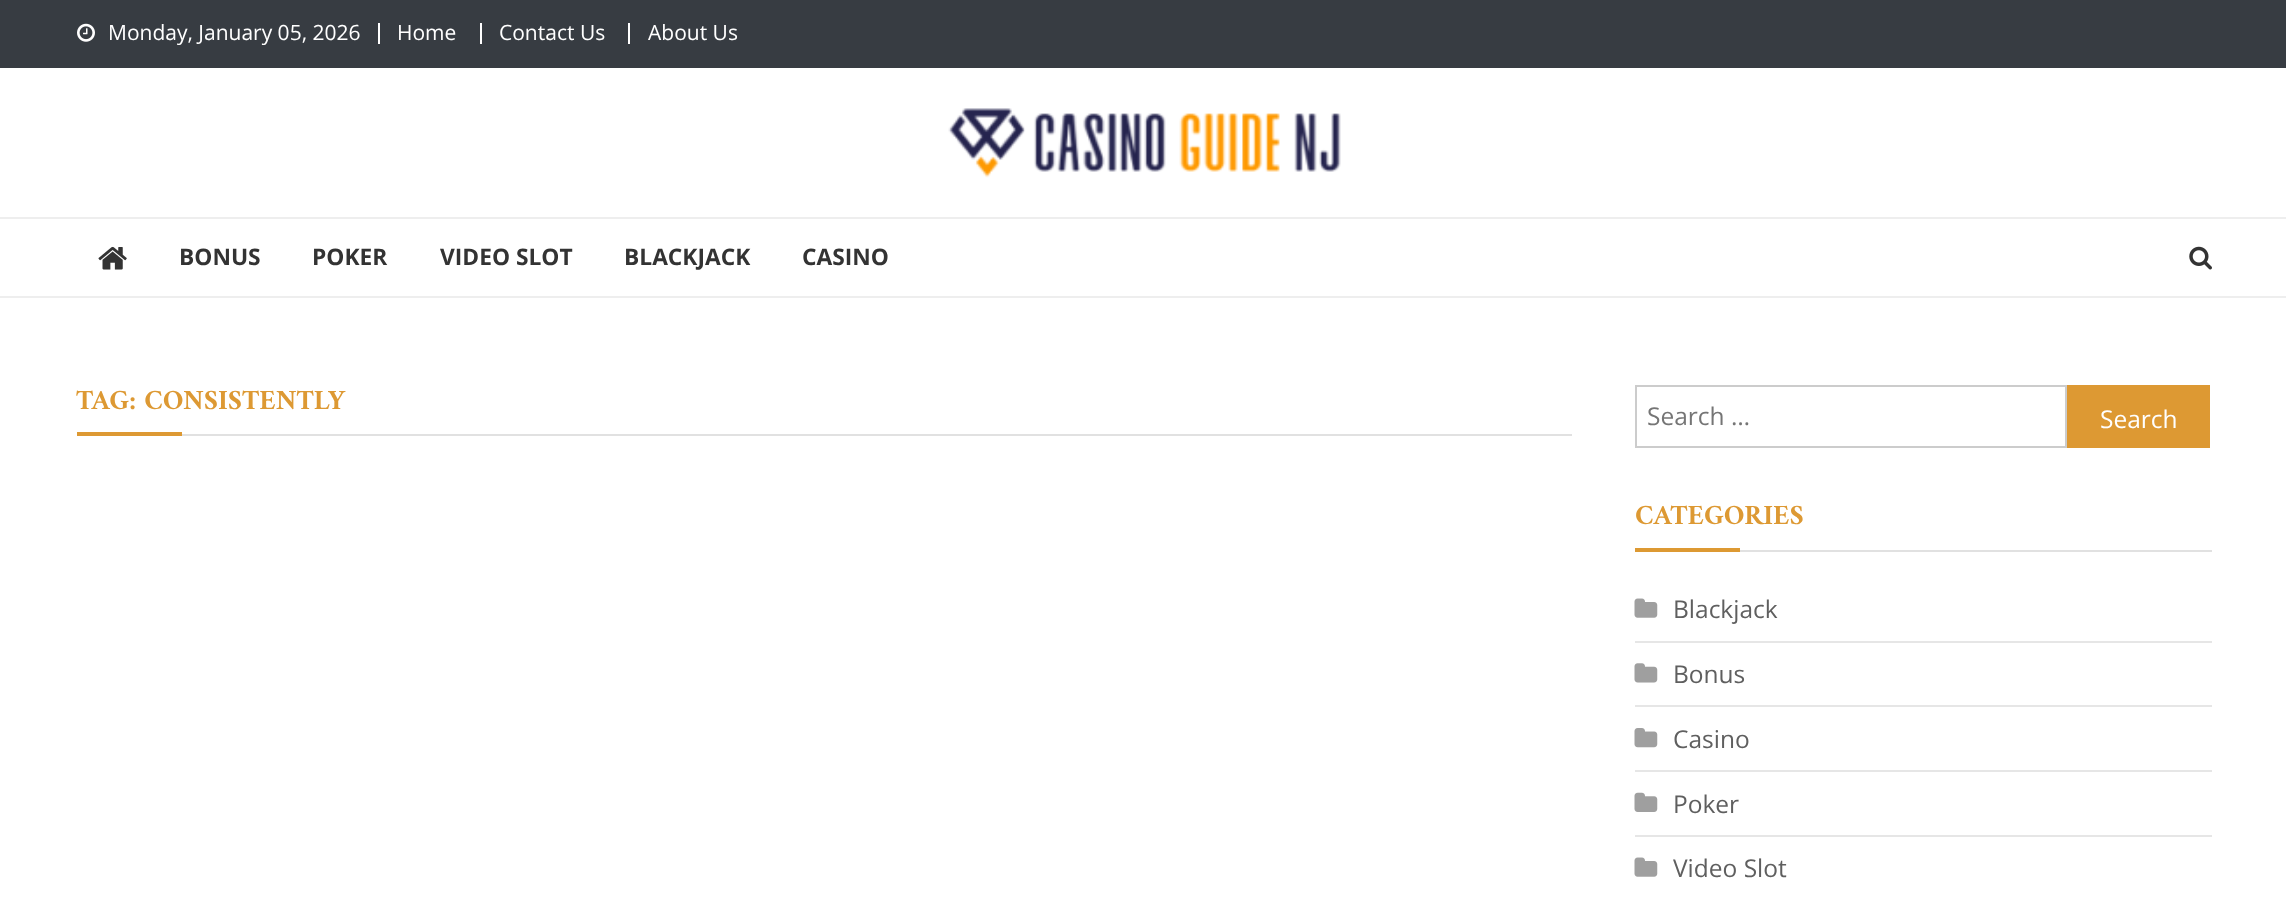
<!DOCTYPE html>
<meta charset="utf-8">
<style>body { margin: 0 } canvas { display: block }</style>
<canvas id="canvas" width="2286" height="900"></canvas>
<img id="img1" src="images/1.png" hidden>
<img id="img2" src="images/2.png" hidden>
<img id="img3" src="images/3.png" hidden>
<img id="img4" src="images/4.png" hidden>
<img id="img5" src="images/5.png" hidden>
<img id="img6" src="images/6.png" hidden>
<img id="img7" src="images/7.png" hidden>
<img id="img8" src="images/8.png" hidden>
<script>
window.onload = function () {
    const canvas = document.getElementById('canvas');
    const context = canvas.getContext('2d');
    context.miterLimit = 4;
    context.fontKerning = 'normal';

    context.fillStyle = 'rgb(255, 255, 255)';
    context.fillRect(0, 0, 2286, 900);
    context.fillStyle = 'rgb(55, 60, 66)';
    context.fillRect(0, 0, 2286, 68);
    context.drawImage(document.getElementById('img1'), 77, 23, 18, 19);
    context.fillStyle = 'rgb(255, 255, 255)';
    context.fillRect(378, 23, 2, 21);
    context.fillRect(480, 23, 2, 21);
    context.fillRect(628, 23, 2, 21);
    context.drawImage(document.getElementById('img2'), 948, 108, 393, 70);
    context.fillStyle = 'rgb(238, 238, 238)';
    context.fillRect(0, 217, 2286, 2);
    context.fillRect(0, 296, 2286, 2);
    context.drawImage(document.getElementById('img3'), 98, 246, 29, 24);
    context.drawImage(document.getElementById('img4'), 2189, 246, 23, 24);
    context.fillStyle = 'rgb(225, 225, 225)';
    context.fillRect(182, 434, 1390, 2);
    context.fillStyle = 'rgb(221, 153, 51)';
    context.fillRect(77, 432, 105, 4);
    context.strokeStyle = 'rgb(204, 204, 204)';
    context.lineWidth = 2;
    context.strokeRect(1636, 386, 430, 61);
    context.fillRect(2067, 385, 143, 63);
    context.fillStyle = 'rgb(225, 225, 225)';
    context.fillRect(1740, 550, 472, 2);
    context.fillStyle = 'rgb(221, 153, 51)';
    context.fillRect(1635, 548, 105, 4);
    context.fillStyle = 'rgb(230, 230, 230)';
    context.fillRect(1635, 641, 577, 2);
    context.drawImage(document.getElementById('img5'), 1634, 598, 24, 20);
    context.fillRect(1635, 705, 577, 2);
    context.drawImage(document.getElementById('img6'), 1634, 663, 24, 20);
    context.fillRect(1635, 770, 577, 2);
    context.drawImage(document.getElementById('img7'), 1634, 728, 24, 20);
    context.fillRect(1635, 835, 577, 2);
    context.drawImage(document.getElementById('img8'), 1634, 792, 24, 20);
    context.drawImage(document.getElementById('img5'), 1634, 857, 24, 20);
    context.font = '21px Open Sans';
    context.fillStyle = 'rgb(255, 255, 255)';
    context.fillText('Monday, January 05, 2026', 108, 40);
    context.fillText('Home', 397, 40);
    context.fillText('Contact Us', 499, 40);
    context.fillText('About Us', 648, 40);
    context.font = 'bold 22.75px Open Sans';
    context.fillStyle = 'rgb(51, 51, 51)';
    context.fillText('BONUS', 179, 265);
    context.fillText('POKER', 312, 265);
    context.fillText('VIDEO SLOT', 440, 265);
    context.fillText('BLACKJACK', 624, 265);
    context.fillText('CASINO', 802, 265);
    context.font = 'bold 28px Amiri';
    context.fillStyle = 'rgb(221, 153, 51)';
    context.fillText('TAG: CONSISTENTLY', 76, 409);
    context.font = '24.5px Open Sans';
    context.fillStyle = 'rgb(117, 117, 117)';
    context.fillText('Search …', 1647, 425);
    context.fillStyle = 'rgb(255, 255, 255)';
    context.fillText('Search', 2100, 428);
    context.font = 'bold 28px Amiri';
    context.fillStyle = 'rgb(221, 153, 51)';
    context.fillText('CATEGORIES', 1635, 524);
    context.font = '24.5px Open Sans';
    context.fillStyle = 'rgb(95, 95, 95)';
    context.fillText('Blackjack', 1673, 618);
    context.fillText('Bonus', 1673, 683);
    context.fillText('Casino', 1673, 748);
    context.fillText('Poker', 1673, 813);
    context.fillText('Video Slot', 1673, 877);
};
</script>
